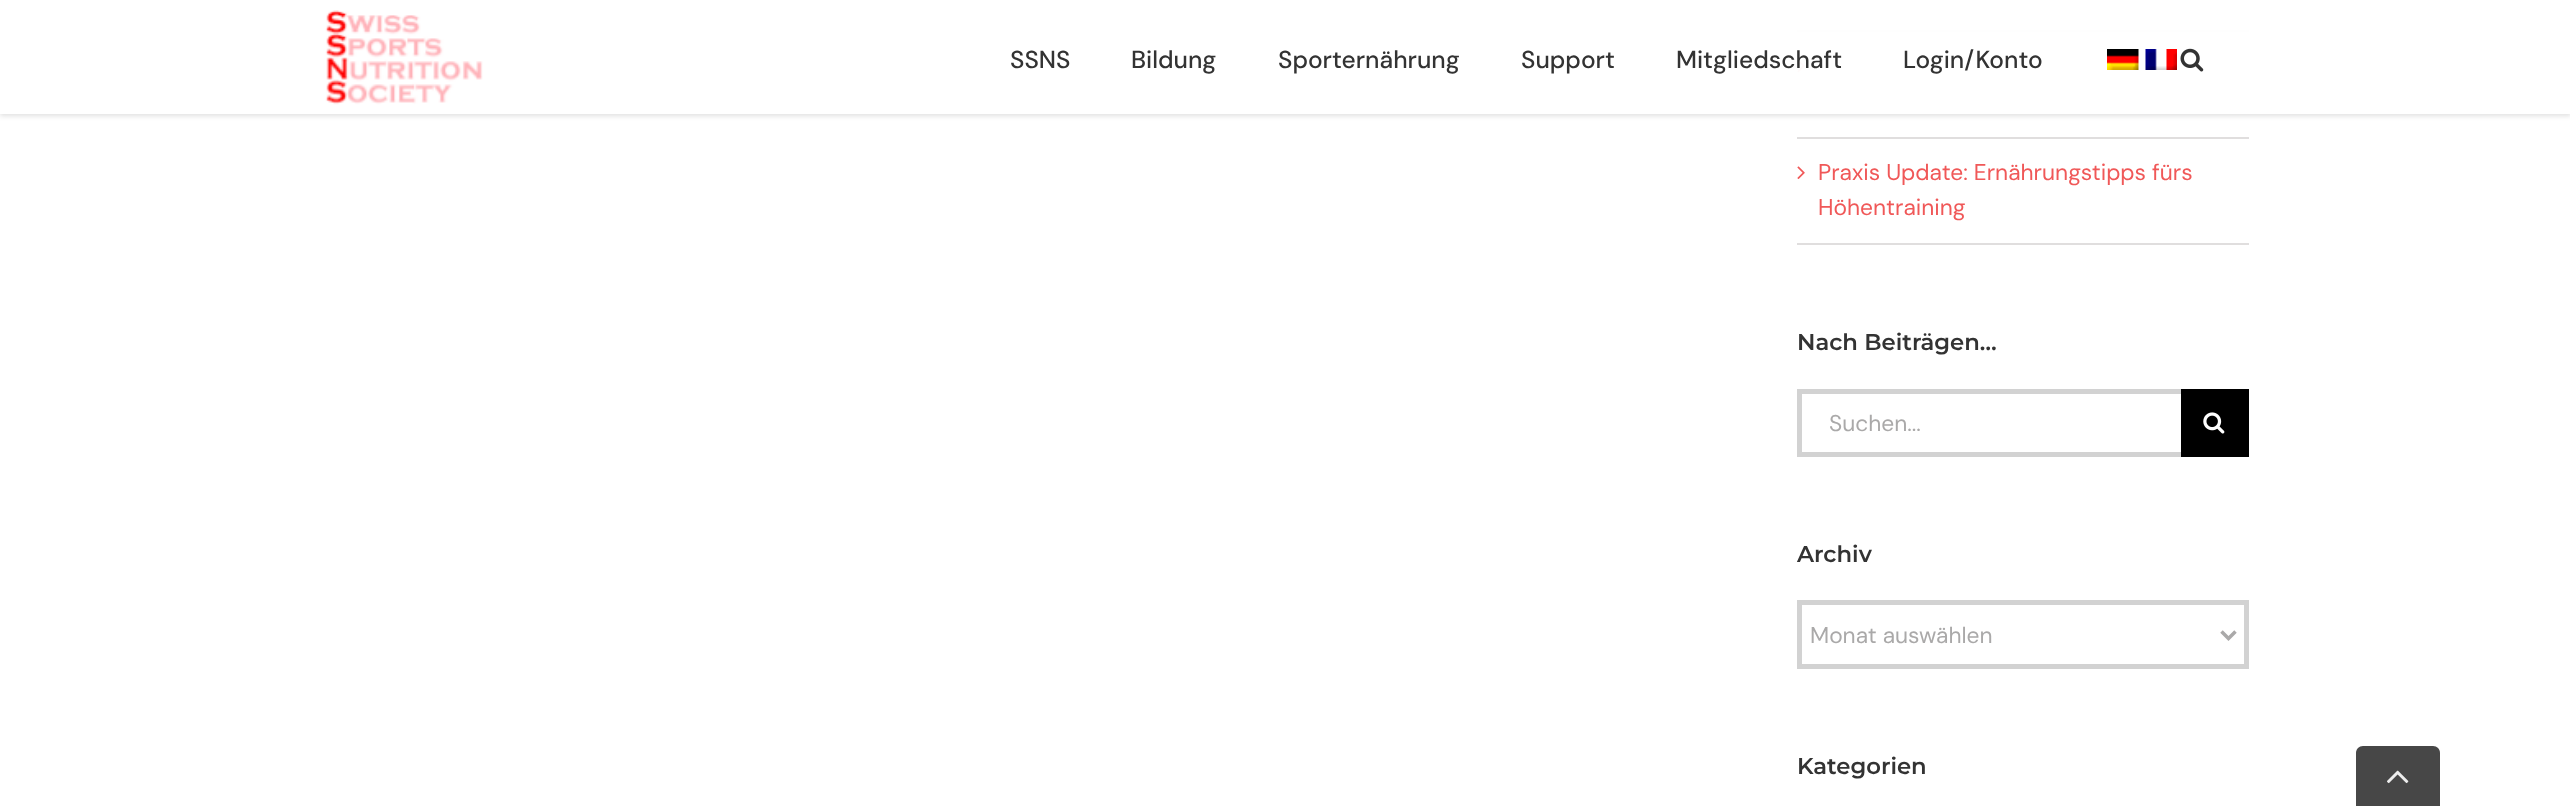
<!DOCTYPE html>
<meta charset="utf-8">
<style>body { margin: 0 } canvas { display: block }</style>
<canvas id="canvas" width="2570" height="806"></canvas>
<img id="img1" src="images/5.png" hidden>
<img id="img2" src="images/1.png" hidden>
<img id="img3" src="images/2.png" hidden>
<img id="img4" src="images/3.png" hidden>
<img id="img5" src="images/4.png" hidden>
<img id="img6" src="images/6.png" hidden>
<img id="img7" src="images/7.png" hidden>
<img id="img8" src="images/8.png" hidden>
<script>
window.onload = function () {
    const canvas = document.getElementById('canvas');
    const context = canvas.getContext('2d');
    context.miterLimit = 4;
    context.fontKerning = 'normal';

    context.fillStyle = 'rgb(255, 255, 255)';
    context.fillRect(0, 0, 2570, 806);
    context.fillStyle = 'rgb(224, 222, 222)';
    context.fillRect(1797, 30, 452, 2);
    context.drawImage(document.getElementById('img1'), 1797, 59, 8, 14);
    context.save();
    context.beginPath();
    context.moveTo(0, 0);
    context.lineTo(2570, 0);
    context.lineTo(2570, 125);
    context.lineTo(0, 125);
    context.closePath();
    context.moveTo(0, 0);
    context.lineTo(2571, 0);
    context.lineTo(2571, 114);
    context.lineTo(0, 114);
    context.closePath();
    context.clip('evenodd');
    context.fillStyle = 'rgba(0, 0, 0, 0.12)';
    context.filter = 'blur(2.5px)';
    context.beginPath();
    context.rect(0, 2, 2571, 114);
    context.fill();
    context.filter = 'none';
    context.restore();
    context.fillStyle = 'rgba(255, 255, 255, 0.97)';
    context.fillRect(0, 30, 2570, 84);
    context.drawImage(document.getElementById('img2'), 325, 10, 158, 95);
    context.drawImage(document.getElementById('img3'), 2107, 49, 32, 21);
    context.drawImage(document.getElementById('img4'), 2145, 49, 32, 21);
    context.drawImage(document.getElementById('img5'), 2180, 48, 24, 24);
    context.fillStyle = 'rgb(224, 222, 222)';
    context.fillRect(1797, 137, 452, 2);
    context.fillRect(1797, 243, 452, 2);
    context.drawImage(document.getElementById('img6'), 1797, 166, 8, 13);
    context.fillStyle = 'rgb(210, 210, 210)';
    context.fillRect(1797, 389, 384, 5);
    context.fillRect(1797, 452, 384, 5);
    context.fillRect(1797, 389, 5, 68);
    context.fillStyle = 'rgb(0, 0, 0)';
    context.fillRect(2181, 389, 68, 68);
    context.drawImage(document.getElementById('img7'), 2203, 412, 22, 22);
    context.strokeStyle = 'rgb(210, 210, 210)';
    context.lineWidth = 5;
    context.strokeRect(1799.5, 602.5, 447, 64);
    context.beginPath();
    context.moveTo(2221.5, 631.5);
    context.lineTo(2228.5, 638.5);
    context.lineTo(2235.5, 631.5);
    context.strokeStyle = 'rgb(170, 169, 169)';
    context.lineWidth = 3.5;
    context.stroke();
    context.fillStyle = 'rgb(71, 71, 71)';
    context.beginPath();
    context.moveTo(2363, 746);
    context.lineTo(2433, 746);
    context.bezierCurveTo(2437, 746, 2440, 749, 2440, 753);
    context.lineTo(2440, 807);
    context.lineTo(2356, 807);
    context.lineTo(2356, 753);
    context.bezierCurveTo(2356, 749, 2359, 746, 2363, 746);
    context.closePath();
    context.fill();
    context.drawImage(document.getElementById('img8'), 2387, 770, 22, 14);
    context.font = '500 24.5px DM Sans';
    context.fillStyle = 'rgb(51, 51, 51)';
    context.fillText('SSNS', 1010, 68);
    context.fillText('Bildung', 1131, 68);
    context.fillText('Sporternährung', 1278, 68);
    context.fillText('Support', 1521, 68);
    context.fillText('Mitgliedschaft', 1676, 68);
    context.fillText('Login/Konto', 1903, 68);
    context.font = '22.75px DM Sans';
    context.fillStyle = 'rgb(240, 88, 88)';
    context.fillText('Praxis Update: Ernährungstipps fürs', 1818, 180);
    context.fillText('Höhentraining', 1818, 215);
    context.font = '100 22.75px Montserrat';
    context.fillStyle = 'rgb(51, 51, 51)';
    context.fillText('Nach Beiträgen…', 1797, 350);
    context.font = '22.75px DM Sans';
    context.fillStyle = 'rgb(170, 169, 169)';
    context.fillText('Suchen...', 1829, 431);
    context.font = '100 22.75px Montserrat';
    context.fillStyle = 'rgb(51, 51, 51)';
    context.fillText('Archiv', 1797, 562);
    context.font = '22.75px DM Sans';
    context.fillStyle = 'rgb(170, 169, 169)';
    context.fillText('Monat auswählen', 1810, 643);
    context.font = '100 22.75px Montserrat';
    context.fillStyle = 'rgb(51, 51, 51)';
    context.fillText('Kategorien', 1797, 774);
};
</script>
